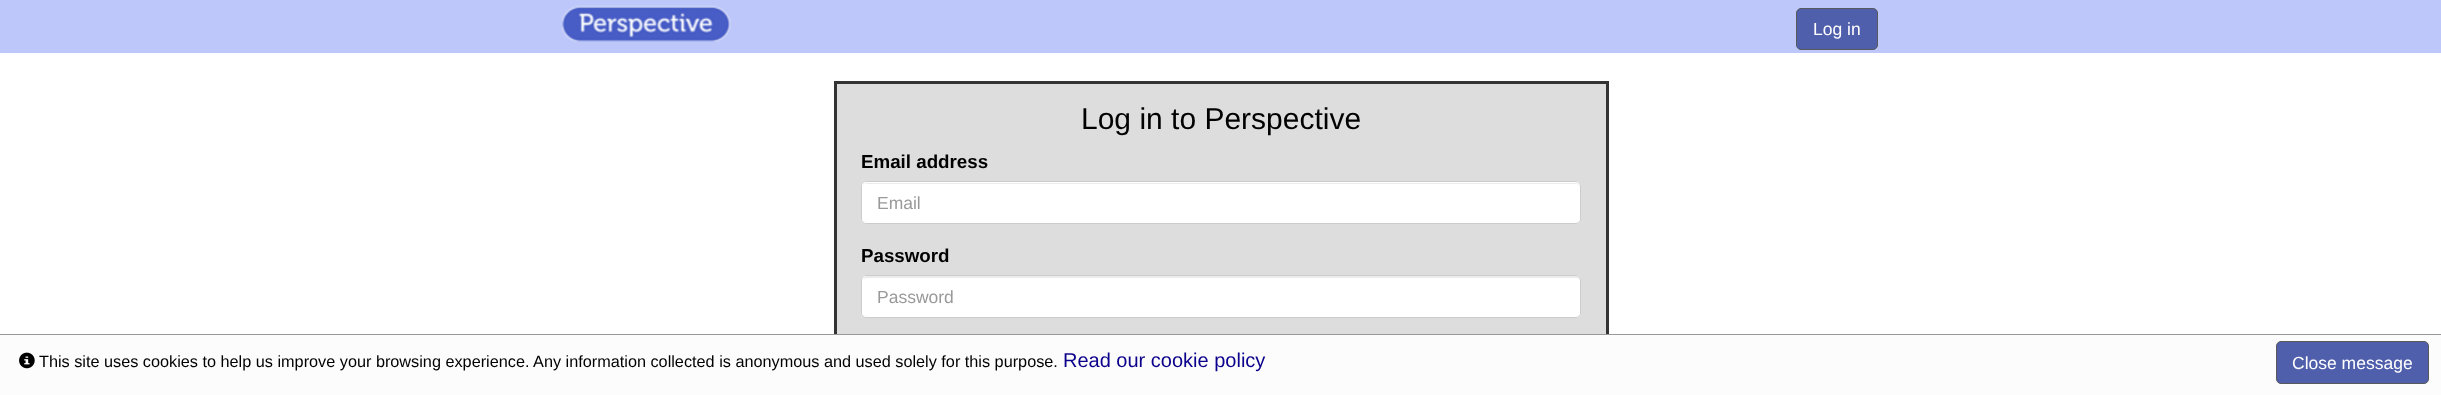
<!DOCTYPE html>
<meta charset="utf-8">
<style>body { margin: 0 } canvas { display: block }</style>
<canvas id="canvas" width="2441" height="395"></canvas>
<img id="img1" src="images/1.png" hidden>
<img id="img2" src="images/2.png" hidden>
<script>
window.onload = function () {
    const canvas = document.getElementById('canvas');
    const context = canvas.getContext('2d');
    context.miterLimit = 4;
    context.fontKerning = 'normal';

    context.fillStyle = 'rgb(255, 255, 255)';
    context.fillRect(0, 0, 2441, 395);
    context.fillStyle = 'rgb(189, 199, 250)';
    context.fillRect(0, 0, 2441, 53);
    context.drawImage(document.getElementById('img1'), 562, 5, 169, 37);
    context.fillStyle = 'rgb(80, 95, 171)';
    context.beginPath();
    context.roundRect(1796.5, 8.5, 81, 41, 4.5);
    context.fill();
    context.strokeStyle = 'rgb(89, 89, 89)';
    context.stroke();
    context.fillStyle = 'rgb(221, 221, 221)';
    context.fillRect(837, 84, 769, 250);
    context.strokeStyle = 'rgb(51, 51, 51)';
    context.lineWidth = 3;
    context.strokeRect(835.5, 82.5, 772, 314);
    context.fillStyle = 'rgb(255, 255, 255)';
    context.beginPath();
    context.roundRect(861, 181, 720, 43, 5);
    context.fill();
    context.fillStyle = 'rgb(236, 236, 236)';
    context.beginPath();
    context.moveTo(866, 184);
    context.lineTo(1576, 184);
    context.bezierCurveTo(1578, 184, 1580, 185, 1580, 188);
    context.lineTo(1580, 187);
    context.bezierCurveTo(1580, 185, 1578, 183, 1576, 183);
    context.lineTo(867, 183);
    context.bezierCurveTo(866, 183, 865, 184, 864, 184);
    context.closePath();
    context.fill();
    context.beginPath();
    context.roundRect(861.5, 181.5, 719, 42, 4.5);
    context.strokeStyle = 'rgb(204, 204, 204)';
    context.lineWidth = 1;
    context.stroke();
    context.fillStyle = 'rgb(255, 255, 255)';
    context.beginPath();
    context.roundRect(861, 275, 720, 43, 5);
    context.fill();
    context.fillStyle = 'rgb(236, 236, 236)';
    context.beginPath();
    context.moveTo(866, 278);
    context.lineTo(1576, 278);
    context.bezierCurveTo(1578, 278, 1580, 279, 1580, 281);
    context.lineTo(1580, 280);
    context.bezierCurveTo(1580, 278, 1578, 276, 1576, 276);
    context.lineTo(867, 276);
    context.bezierCurveTo(865, 276, 864, 277, 863, 279);
    context.closePath();
    context.fill();
    context.beginPath();
    context.roundRect(861.5, 275.5, 719, 42, 4.5);
    context.stroke();
    context.fillStyle = 'rgb(252, 252, 252)';
    context.fillRect(0, 335, 2441, 60);
    context.fillStyle = 'rgb(153, 153, 153)';
    context.fillRect(0, 334, 2441, 1);
    context.drawImage(document.getElementById('img2'), 19, 352, 16, 17);
    context.fillStyle = 'rgb(80, 95, 171)';
    context.beginPath();
    context.roundRect(2276.5, 341.5, 152, 42, 4.5);
    context.fill();
    context.strokeStyle = 'rgb(89, 89, 89)';
    context.stroke();
    context.font = '17.5px Liberation Sans';
    context.fillStyle = 'rgb(255, 255, 255)';
    context.fillText('Log in', 1813, 35);
    context.font = '30px Liberation Sans';
    context.fillStyle = 'rgb(0, 0, 0)';
    context.fillText('Log in to Perspective', 1081, 129);
    context.font = 'bold 18.75px Liberation Sans';
    context.fillText('Email address', 861, 168);
    context.font = '17.5px Liberation Sans';
    context.fillStyle = 'rgb(153, 153, 153)';
    context.fillText('Email', 877, 209);
    context.font = 'bold 18.75px Liberation Sans';
    context.fillStyle = 'rgb(0, 0, 0)';
    context.fillText('Password', 861, 262);
    context.font = '17.5px Liberation Sans';
    context.fillStyle = 'rgb(153, 153, 153)';
    context.fillText('Password', 877, 303);
    context.font = '16.25px Liberation Sans';
    context.fillStyle = 'rgb(0, 0, 0)';
    context.fillText('This site uses cookies to help us improve your browsing experience. Any information collected is anonymous and used solely for this purpose.', 39, 367);
    context.font = '20px Liberation Sans';
    context.fillStyle = 'rgb(11, 0, 139)';
    context.fillText('Read our cookie policy', 1063, 367);
    context.font = '17.5px Liberation Sans';
    context.fillStyle = 'rgb(255, 255, 255)';
    context.fillText('Close message', 2292, 369);
};
</script>
